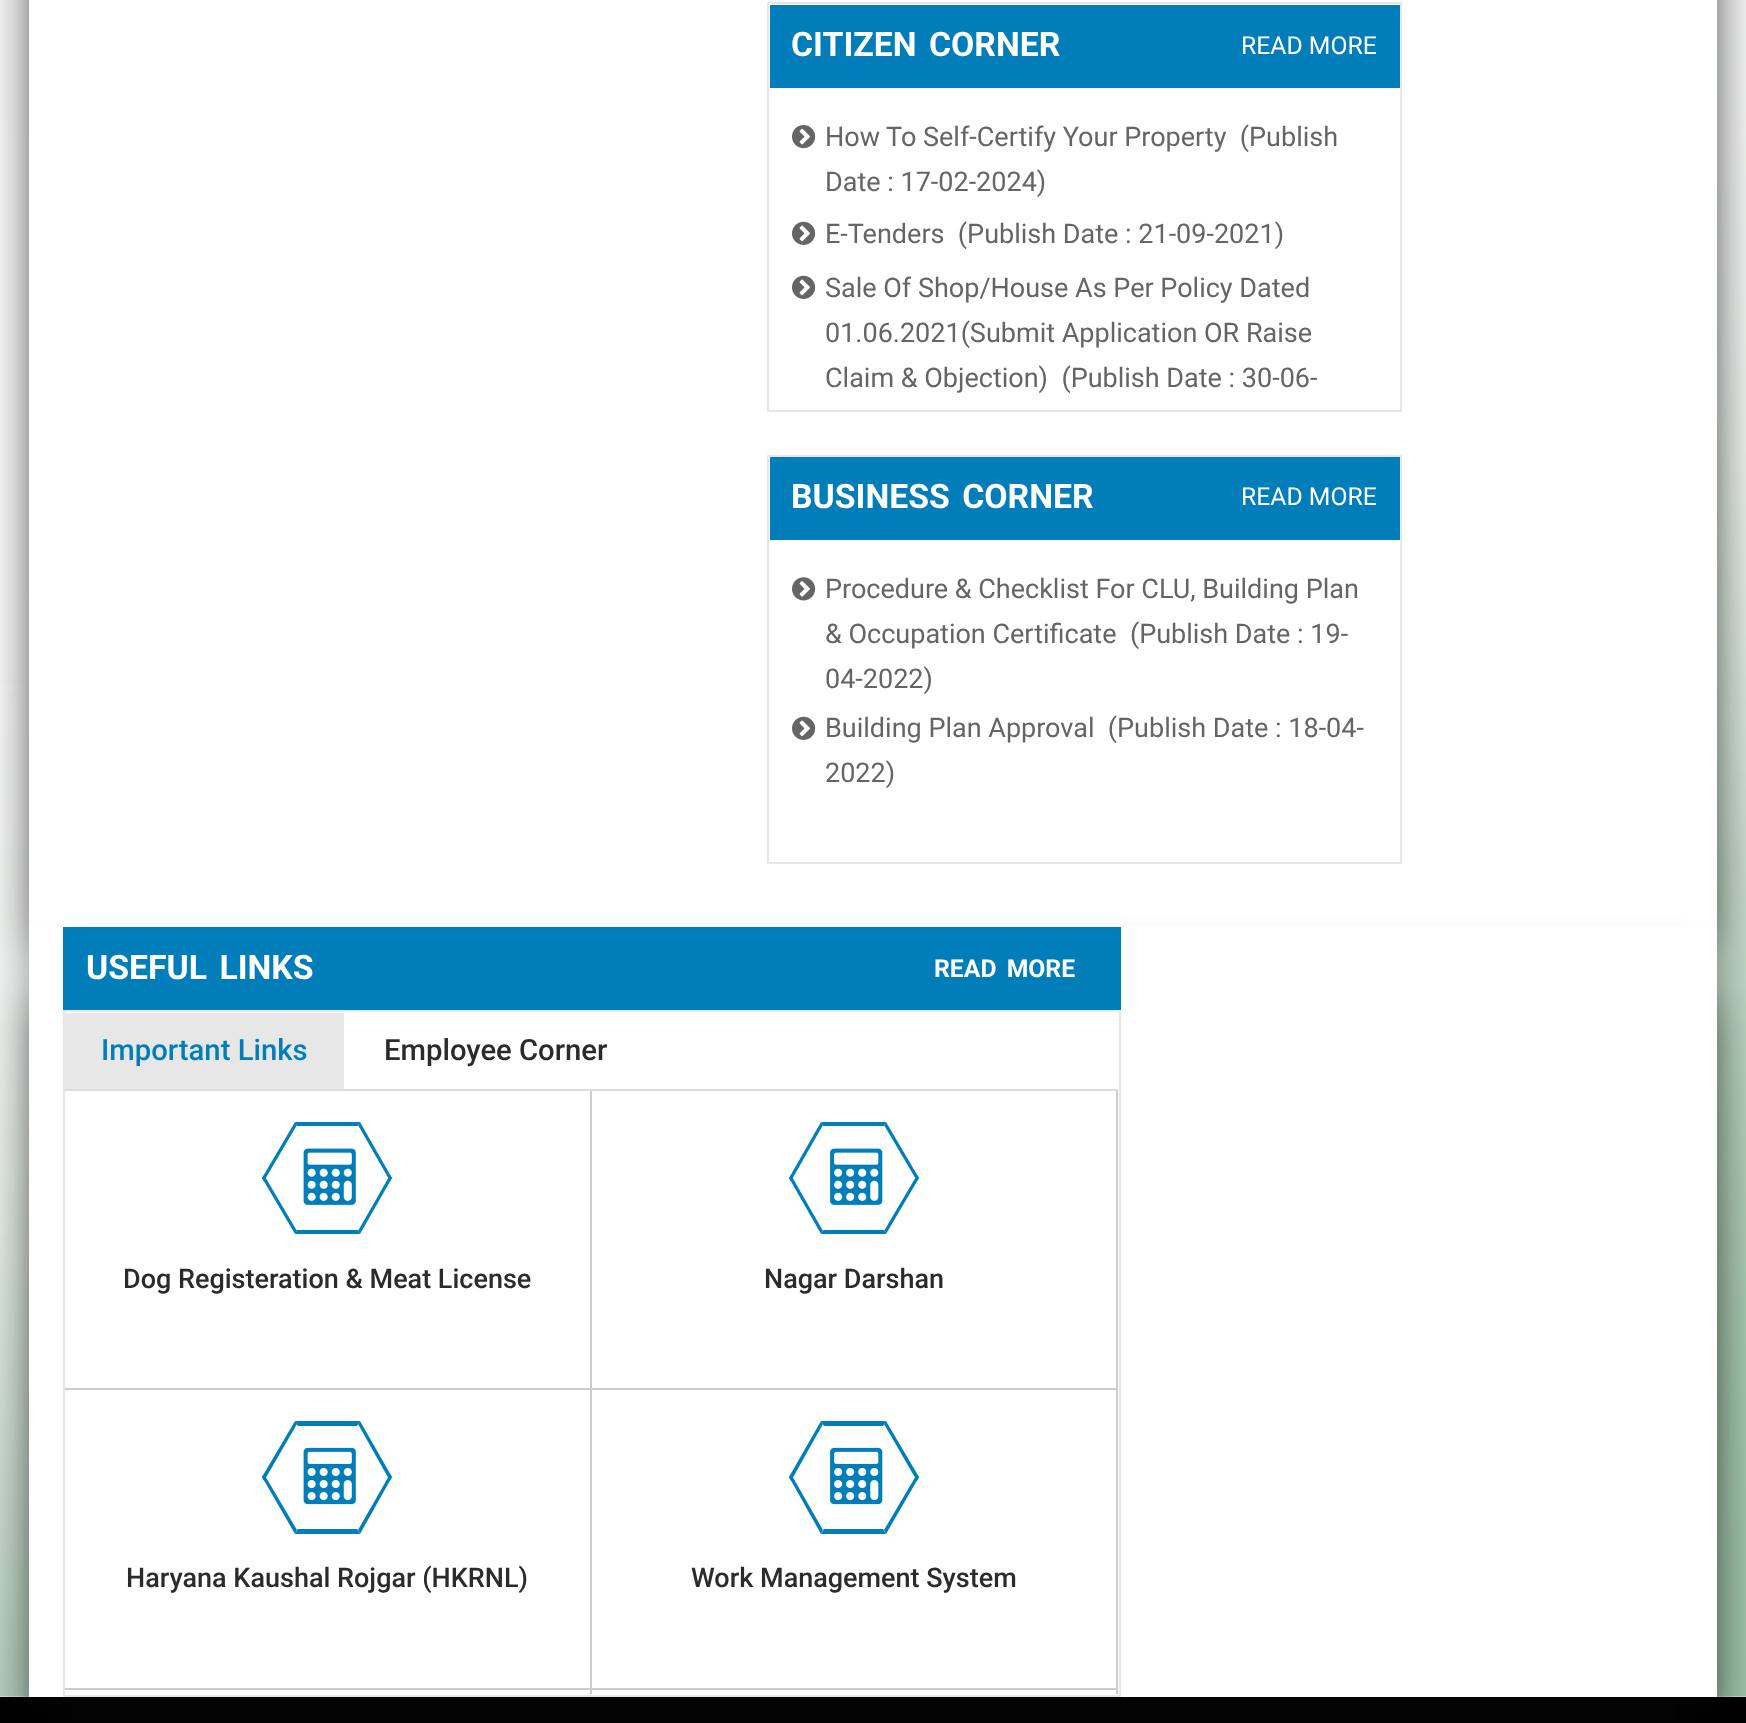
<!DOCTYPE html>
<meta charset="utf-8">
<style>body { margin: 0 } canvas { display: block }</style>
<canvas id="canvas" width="1746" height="1723"></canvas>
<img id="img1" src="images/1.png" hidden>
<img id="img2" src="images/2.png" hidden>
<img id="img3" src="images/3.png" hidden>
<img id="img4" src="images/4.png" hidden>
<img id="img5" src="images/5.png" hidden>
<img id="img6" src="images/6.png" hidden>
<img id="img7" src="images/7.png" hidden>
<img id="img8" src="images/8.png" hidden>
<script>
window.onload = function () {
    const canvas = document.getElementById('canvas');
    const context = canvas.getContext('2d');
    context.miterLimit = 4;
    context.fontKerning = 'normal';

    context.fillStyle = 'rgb(253, 253, 253)';
    context.fillRect(0, 0, 1746, 1723);
    context.drawImage(document.getElementById('img1'), 0, 0, 1746, 1697);
    context.fillStyle = 'rgb(4, 4, 4)';
    context.filter = 'blur(28px)';
    context.beginPath();
    context.rect(41, -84, 1665, 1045);
    context.fill();
    context.filter = 'none';
    context.fillStyle = 'rgb(255, 255, 255)';
    context.fillRect(29, 0, 1688, 927);
    context.strokeStyle = 'rgb(232, 231, 232)';
    context.lineWidth = 2;
    context.strokeRect(768, 3, 633, 408);
    context.fillStyle = 'rgb(1, 125, 186)';
    context.fillRect(770, 5, 630, 83);
    context.drawImage(document.getElementById('img2'), 792, 125, 24, 24);
    context.drawImage(document.getElementById('img3'), 792, 221, 24, 24);
    context.drawImage(document.getElementById('img3'), 792, 275, 24, 24);
    context.strokeRect(768, 456, 633, 407);
    context.fillRect(770, 457, 630, 83);
    context.drawImage(document.getElementById('img4'), 792, 577, 24, 24);
    context.drawImage(document.getElementById('img3'), 792, 716, 24, 24);
    context.fillStyle = 'rgb(0, 0, 0)';
    context.fillRect(0, 1697, 1746, 26);
    context.fillStyle = 'rgb(4, 4, 4)';
    context.filter = 'blur(28px)';
    context.beginPath();
    context.rect(41, 983, 1665, 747);
    context.fill();
    context.filter = 'none';
    context.fillStyle = 'rgb(255, 255, 255)';
    context.fillRect(29, 927, 1688, 770);
    context.fillStyle = 'rgb(1, 125, 186)';
    context.fillRect(63, 927, 1058, 83);
    context.strokeRect(64, 1011, 1056, 685);
    context.fillStyle = 'rgb(221, 221, 221)';
    context.fillRect(65, 1089, 1053, 2);
    context.fillStyle = 'rgb(232, 231, 232)';
    context.fillRect(65, 1013, 279, 76);
    context.fillStyle = 'rgb(204, 204, 204)';
    context.fillRect(590, 1091, 2, 603);
    context.fillRect(65, 1388, 527, 2);
    context.fillStyle = 'rgb(1, 125, 186)';
    context.fillRect(295, 1230, 65, 4);
    context.fillRect(295, 1122, 65, 4);
    context.fillStyle = 'rgb(255, 255, 255)';
    context.beginPath();
    context.moveTo(295, 1122);
    context.lineTo(327, 1178);
    context.lineTo(295, 1234);
    context.lineTo(262, 1178);
    context.closePath();
    context.fill();
    context.fillStyle = 'rgb(1, 125, 186)';
    context.beginPath();
    context.moveTo(264, 1175);
    context.lineTo(297, 1231);
    context.lineTo(295, 1234);
    context.lineTo(262, 1178);
    context.closePath();
    context.fill();
    context.beginPath();
    context.moveTo(295, 1122);
    context.lineTo(297, 1125);
    context.lineTo(264, 1181);
    context.lineTo(262, 1178);
    context.closePath();
    context.fill();
    context.fillStyle = 'rgb(255, 255, 255)';
    context.beginPath();
    context.moveTo(360, 1122);
    context.lineTo(392, 1178);
    context.lineTo(360, 1234);
    context.lineTo(327, 1178);
    context.closePath();
    context.fill();
    context.fillStyle = 'rgb(1, 125, 186)';
    context.beginPath();
    context.moveTo(360, 1122);
    context.lineTo(392, 1178);
    context.lineTo(390, 1181);
    context.lineTo(358, 1125);
    context.closePath();
    context.fill();
    context.beginPath();
    context.moveTo(390, 1175);
    context.lineTo(392, 1178);
    context.lineTo(360, 1234);
    context.lineTo(358, 1231);
    context.closePath();
    context.fill();
    context.drawImage(document.getElementById('img5'), 303, 1148, 53, 57);
    context.fillStyle = 'rgb(204, 204, 204)';
    context.fillRect(1116, 1091, 2, 603);
    context.fillRect(592, 1388, 526, 2);
    context.fillStyle = 'rgb(1, 125, 186)';
    context.fillRect(821, 1230, 65, 4);
    context.fillRect(821, 1122, 65, 4);
    context.fillStyle = 'rgb(255, 255, 255)';
    context.beginPath();
    context.moveTo(821, 1122);
    context.lineTo(854, 1178);
    context.lineTo(821, 1234);
    context.lineTo(789, 1178);
    context.closePath();
    context.fill();
    context.fillStyle = 'rgb(1, 125, 186)';
    context.beginPath();
    context.moveTo(791, 1175);
    context.lineTo(823, 1231);
    context.lineTo(821, 1234);
    context.lineTo(789, 1178);
    context.closePath();
    context.fill();
    context.beginPath();
    context.moveTo(821, 1122);
    context.lineTo(823, 1125);
    context.lineTo(791, 1181);
    context.lineTo(789, 1178);
    context.closePath();
    context.fill();
    context.fillStyle = 'rgb(255, 255, 255)';
    context.beginPath();
    context.moveTo(886, 1122);
    context.lineTo(919, 1178);
    context.lineTo(886, 1234);
    context.lineTo(854, 1178);
    context.closePath();
    context.fill();
    context.fillStyle = 'rgb(1, 125, 186)';
    context.beginPath();
    context.moveTo(886, 1122);
    context.lineTo(919, 1178);
    context.lineTo(917, 1181);
    context.lineTo(884, 1125);
    context.closePath();
    context.fill();
    context.beginPath();
    context.moveTo(917, 1175);
    context.lineTo(919, 1178);
    context.lineTo(886, 1234);
    context.lineTo(884, 1231);
    context.closePath();
    context.fill();
    context.drawImage(document.getElementById('img6'), 830, 1148, 53, 57);
    context.fillStyle = 'rgb(204, 204, 204)';
    context.fillRect(65, 1688, 1053, 2);
    context.fillStyle = 'rgb(1, 125, 186)';
    context.fillRect(295, 1529, 65, 5);
    context.fillRect(295, 1421, 65, 5);
    context.fillStyle = 'rgb(255, 255, 255)';
    context.beginPath();
    context.moveTo(295, 1421);
    context.lineTo(327, 1477);
    context.lineTo(295, 1534);
    context.lineTo(262, 1477);
    context.closePath();
    context.fill();
    context.fillStyle = 'rgb(1, 125, 186)';
    context.beginPath();
    context.moveTo(264, 1474);
    context.lineTo(297, 1530);
    context.lineTo(295, 1534);
    context.lineTo(262, 1477);
    context.closePath();
    context.fill();
    context.beginPath();
    context.moveTo(295, 1421);
    context.lineTo(297, 1424);
    context.lineTo(264, 1481);
    context.lineTo(262, 1477);
    context.closePath();
    context.fill();
    context.fillStyle = 'rgb(255, 255, 255)';
    context.beginPath();
    context.moveTo(360, 1421);
    context.lineTo(392, 1477);
    context.lineTo(360, 1534);
    context.lineTo(327, 1477);
    context.closePath();
    context.fill();
    context.fillStyle = 'rgb(1, 125, 186)';
    context.beginPath();
    context.moveTo(360, 1421);
    context.lineTo(392, 1477);
    context.lineTo(390, 1481);
    context.lineTo(358, 1424);
    context.closePath();
    context.fill();
    context.beginPath();
    context.moveTo(390, 1474);
    context.lineTo(392, 1477);
    context.lineTo(360, 1534);
    context.lineTo(358, 1530);
    context.closePath();
    context.fill();
    context.drawImage(document.getElementById('img7'), 303, 1447, 53, 58);
    context.fillRect(821, 1529, 65, 5);
    context.fillRect(821, 1421, 65, 5);
    context.fillStyle = 'rgb(255, 255, 255)';
    context.beginPath();
    context.moveTo(821, 1421);
    context.lineTo(854, 1477);
    context.lineTo(821, 1534);
    context.lineTo(789, 1477);
    context.closePath();
    context.fill();
    context.fillStyle = 'rgb(1, 125, 186)';
    context.beginPath();
    context.moveTo(791, 1474);
    context.lineTo(823, 1530);
    context.lineTo(821, 1534);
    context.lineTo(789, 1477);
    context.closePath();
    context.fill();
    context.beginPath();
    context.moveTo(821, 1421);
    context.lineTo(823, 1424);
    context.lineTo(791, 1481);
    context.lineTo(789, 1477);
    context.closePath();
    context.fill();
    context.fillStyle = 'rgb(255, 255, 255)';
    context.beginPath();
    context.moveTo(886, 1421);
    context.lineTo(919, 1477);
    context.lineTo(886, 1534);
    context.lineTo(854, 1477);
    context.closePath();
    context.fill();
    context.fillStyle = 'rgb(1, 125, 186)';
    context.beginPath();
    context.moveTo(886, 1421);
    context.lineTo(919, 1477);
    context.lineTo(917, 1481);
    context.lineTo(884, 1424);
    context.closePath();
    context.fill();
    context.beginPath();
    context.moveTo(917, 1474);
    context.lineTo(919, 1477);
    context.lineTo(886, 1534);
    context.lineTo(884, 1530);
    context.closePath();
    context.fill();
    context.drawImage(document.getElementById('img8'), 830, 1447, 53, 58);
    context.wordSpacing = '4px';
    context.font = 'bold 33.75px Roboto';
    context.fillStyle = 'rgb(255, 255, 255)';
    context.fillText('CITIZEN CORNER', 791, 56);
    context.wordSpacing = '0px';
    context.font = '24.75px Roboto';
    context.fillText('READ MORE', 1241, 54);
    context.font = '27px Roboto';
    context.fillStyle = 'rgb(101, 101, 101)';
    context.fillText('How To Self-Certify Your Property  (Publish', 825, 146);
    context.fillText('Date : 17-02-2024)', 825, 191);
    context.fillText('E-Tenders  (Publish Date : 21-09-2021)', 825, 243);
    context.fillText('Sale Of Shop/House As Per Policy Dated', 825, 297);
    context.fillText('01.06.2021(Submit Application OR Raise', 825, 342);
    context.fillText('Claim & Objection)  (Publish Date : 30-06-', 825, 387);
    context.wordSpacing = '4px';
    context.font = 'bold 33.75px Roboto';
    context.fillStyle = 'rgb(255, 255, 255)';
    context.fillText('BUSINESS CORNER', 791, 508);
    context.wordSpacing = '0px';
    context.font = '24.75px Roboto';
    context.fillText('READ MORE', 1241, 505);
    context.font = '27px Roboto';
    context.fillStyle = 'rgb(101, 101, 101)';
    context.fillText('Procedure & Checklist For CLU, Building Plan', 825, 598);
    context.fillText('& Occupation Certificate  (Publish Date : 19-', 825, 643);
    context.fillText('04-2022)', 825, 688);
    context.fillText('Building Plan Approval  (Publish Date : 18-04-', 825, 737);
    context.fillText('2022)', 825, 782);
    context.wordSpacing = '4px';
    context.font = 'bold 33.75px Roboto';
    context.fillStyle = 'rgb(255, 255, 255)';
    context.fillText('USEFUL LINKS', 86, 979);
    context.font = 'bold 24.75px Roboto';
    context.fillText('READ MORE', 934, 977);
    context.wordSpacing = '0px';
    context.font = '500 29.25px Roboto';
    context.fillStyle = 'rgb(1, 125, 186)';
    context.fillText('Important Links', 101, 1060);
    context.fillStyle = 'rgb(43, 43, 43)';
    context.fillText('Employee Corner', 384, 1060);
    context.font = '500 27px Roboto';
    context.fillText('Dog Registeration & Meat License', 123, 1288);
    context.fillText('Nagar Darshan', 764, 1288);
    context.fillText('Haryana Kaushal Rojgar (HKRNL)', 126, 1587);
    context.fillText('Work Management System', 691, 1587);
};
</script>
